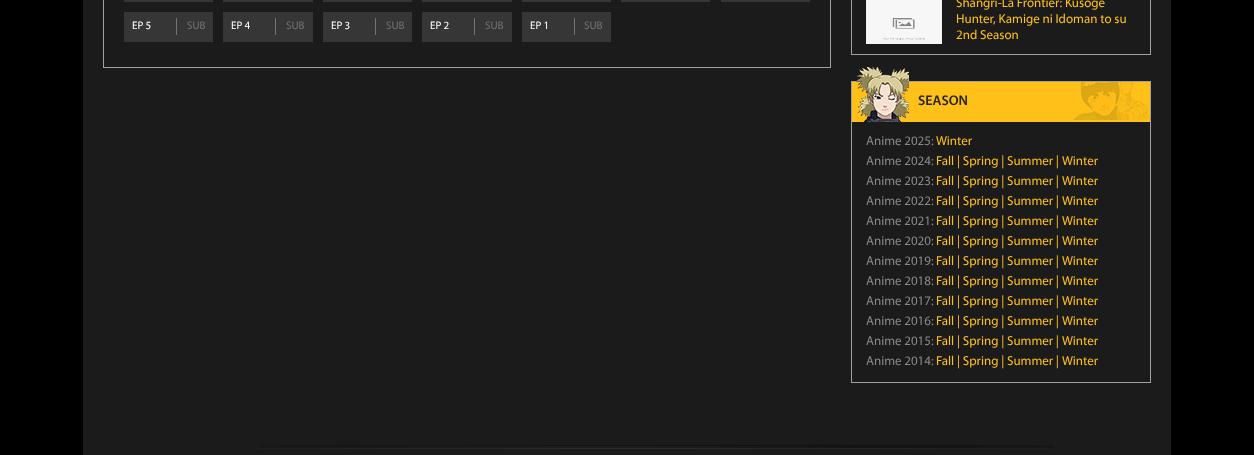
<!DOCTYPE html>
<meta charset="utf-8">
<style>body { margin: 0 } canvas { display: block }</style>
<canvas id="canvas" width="1254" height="455"></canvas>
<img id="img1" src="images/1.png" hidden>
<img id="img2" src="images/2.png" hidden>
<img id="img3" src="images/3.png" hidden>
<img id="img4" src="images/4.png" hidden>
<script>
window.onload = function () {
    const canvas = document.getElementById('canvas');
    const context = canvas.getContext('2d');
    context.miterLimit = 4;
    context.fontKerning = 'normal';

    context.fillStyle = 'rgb(0, 0, 0)';
    context.fillRect(0, 0, 1254, 455);
    context.fillStyle = 'rgb(27, 27, 27)';
    context.fillRect(83, 0, 1088, 455);
    context.strokeStyle = 'rgb(161, 161, 161)';
    context.strokeRect(103.5, -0.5, 727, 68);
    context.fillStyle = 'rgb(54, 54, 54)';
    context.fillRect(124, 0, 89, 2);
    context.fillRect(223, 0, 90, 2);
    context.fillRect(323, 0, 89, 2);
    context.fillRect(422, 0, 90, 2);
    context.fillRect(522, 0, 89, 2);
    context.fillRect(621, 0, 89, 2);
    context.fillRect(721, 0, 89, 2);
    context.fillRect(124, 12, 89, 30);
    context.fillStyle = 'rgb(115, 115, 115)';
    context.fillRect(176, 18, 1, 17);
    context.fillStyle = 'rgb(54, 54, 54)';
    context.fillRect(223, 12, 90, 30);
    context.fillStyle = 'rgb(115, 115, 115)';
    context.fillRect(275, 18, 1, 17);
    context.fillStyle = 'rgb(54, 54, 54)';
    context.fillRect(323, 12, 89, 30);
    context.fillStyle = 'rgb(115, 115, 115)';
    context.fillRect(375, 18, 1, 17);
    context.fillStyle = 'rgb(54, 54, 54)';
    context.fillRect(422, 12, 90, 30);
    context.fillStyle = 'rgb(115, 115, 115)';
    context.fillRect(474, 18, 1, 17);
    context.fillStyle = 'rgb(54, 54, 54)';
    context.fillRect(522, 12, 89, 30);
    context.fillStyle = 'rgb(115, 115, 115)';
    context.fillRect(574, 18, 1, 17);
    context.strokeRect(851.5, -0.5, 299, 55);
    context.drawImage(document.getElementById('img1'), 866, 0, 76, 44);
    context.strokeRect(851.5, 81.5, 299, 301);
    context.fillStyle = 'rgb(255, 193, 25)';
    context.fillRect(852, 82, 298, 40);
    context.drawImage(document.getElementById('img2'), 1073, 82, 77, 38);
    context.drawImage(document.getElementById('img3'), 856, 67, 53, 55);
    context.drawImage(document.getElementById('img4'), 259, 445, 795, 4);
    context.font = '11px Myriad';
    context.fillStyle = 'rgb(255, 255, 255)';
    context.fillText('EP 5', 132, 29);
    context.fillStyle = 'rgb(115, 115, 115)';
    context.fillText('SUB', 187, 29);
    context.fillStyle = 'rgb(255, 255, 255)';
    context.fillText('EP 4', 231, 29);
    context.fillStyle = 'rgb(115, 115, 115)';
    context.fillText('SUB', 286, 29);
    context.fillStyle = 'rgb(255, 255, 255)';
    context.fillText('EP 3', 331, 29);
    context.fillStyle = 'rgb(115, 115, 115)';
    context.fillText('SUB', 386, 29);
    context.fillStyle = 'rgb(255, 255, 255)';
    context.fillText('EP 2', 430, 29);
    context.fillStyle = 'rgb(115, 115, 115)';
    context.fillText('SUB', 485, 29);
    context.fillStyle = 'rgb(255, 255, 255)';
    context.fillText('EP 1', 530, 29);
    context.fillStyle = 'rgb(115, 115, 115)';
    context.fillText('SUB', 584, 29);
    context.font = '13px Myriad';
    context.fillStyle = 'rgb(255, 193, 25)';
    context.fillText('Shangri-La Frontier: Kusoge', 956, 7);
    context.fillText('Hunter, Kamige ni Idoman to su', 956, 23);
    context.fillText('2nd Season', 956, 39);
    context.font = '600 14px Myriad';
    context.fillStyle = 'rgb(37, 37, 37)';
    context.fillText('SEASON', 918, 105);
    context.font = '13px Myriad';
    context.fillStyle = 'rgb(137, 137, 137)';
    context.fillText('Anime 2025:', 866, 145);
    context.fillStyle = 'rgb(255, 193, 25)';
    context.fillText('Winter', 936, 145);
    context.fillStyle = 'rgb(137, 137, 137)';
    context.fillText('Anime 2024:', 866, 165);
    context.fillStyle = 'rgb(255, 193, 25)';
    context.fillText('Fall | Spring | Summer |', 936, 165);
    context.fillText('Winter', 1062, 165);
    context.fillStyle = 'rgb(137, 137, 137)';
    context.fillText('Anime 2023:', 866, 185);
    context.fillStyle = 'rgb(255, 193, 25)';
    context.fillText('Fall | Spring | Summer |', 936, 185);
    context.fillText('Winter', 1062, 185);
    context.fillStyle = 'rgb(137, 137, 137)';
    context.fillText('Anime 2022:', 866, 205);
    context.fillStyle = 'rgb(255, 193, 25)';
    context.fillText('Fall | Spring | Summer |', 936, 205);
    context.fillText('Winter', 1062, 205);
    context.fillStyle = 'rgb(137, 137, 137)';
    context.fillText('Anime 2021:', 866, 225);
    context.fillStyle = 'rgb(255, 193, 25)';
    context.fillText('Fall | Spring | Summer |', 936, 225);
    context.fillText('Winter', 1062, 225);
    context.fillStyle = 'rgb(137, 137, 137)';
    context.fillText('Anime 2020:', 866, 245);
    context.fillStyle = 'rgb(255, 193, 25)';
    context.fillText('Fall | Spring | Summer |', 936, 245);
    context.fillText('Winter', 1062, 245);
    context.fillStyle = 'rgb(137, 137, 137)';
    context.fillText('Anime 2019:', 866, 265);
    context.fillStyle = 'rgb(255, 193, 25)';
    context.fillText('Fall | Spring | Summer |', 936, 265);
    context.fillText('Winter', 1062, 265);
    context.fillStyle = 'rgb(137, 137, 137)';
    context.fillText('Anime 2018:', 866, 285);
    context.fillStyle = 'rgb(255, 193, 25)';
    context.fillText('Fall | Spring | Summer |', 936, 285);
    context.fillText('Winter', 1062, 285);
    context.fillStyle = 'rgb(137, 137, 137)';
    context.fillText('Anime 2017:', 866, 305);
    context.fillStyle = 'rgb(255, 193, 25)';
    context.fillText('Fall | Spring | Summer |', 936, 305);
    context.fillText('Winter', 1062, 305);
    context.fillStyle = 'rgb(137, 137, 137)';
    context.fillText('Anime 2016:', 866, 325);
    context.fillStyle = 'rgb(255, 193, 25)';
    context.fillText('Fall | Spring | Summer |', 936, 325);
    context.fillText('Winter', 1062, 325);
    context.fillStyle = 'rgb(137, 137, 137)';
    context.fillText('Anime 2015:', 866, 345);
    context.fillStyle = 'rgb(255, 193, 25)';
    context.fillText('Fall | Spring | Summer |', 936, 345);
    context.fillText('Winter', 1062, 345);
    context.fillStyle = 'rgb(137, 137, 137)';
    context.fillText('Anime 2014:', 866, 365);
    context.fillStyle = 'rgb(255, 193, 25)';
    context.fillText('Fall | Spring | Summer |', 936, 365);
    context.fillText('Winter', 1062, 365);
};
</script>
